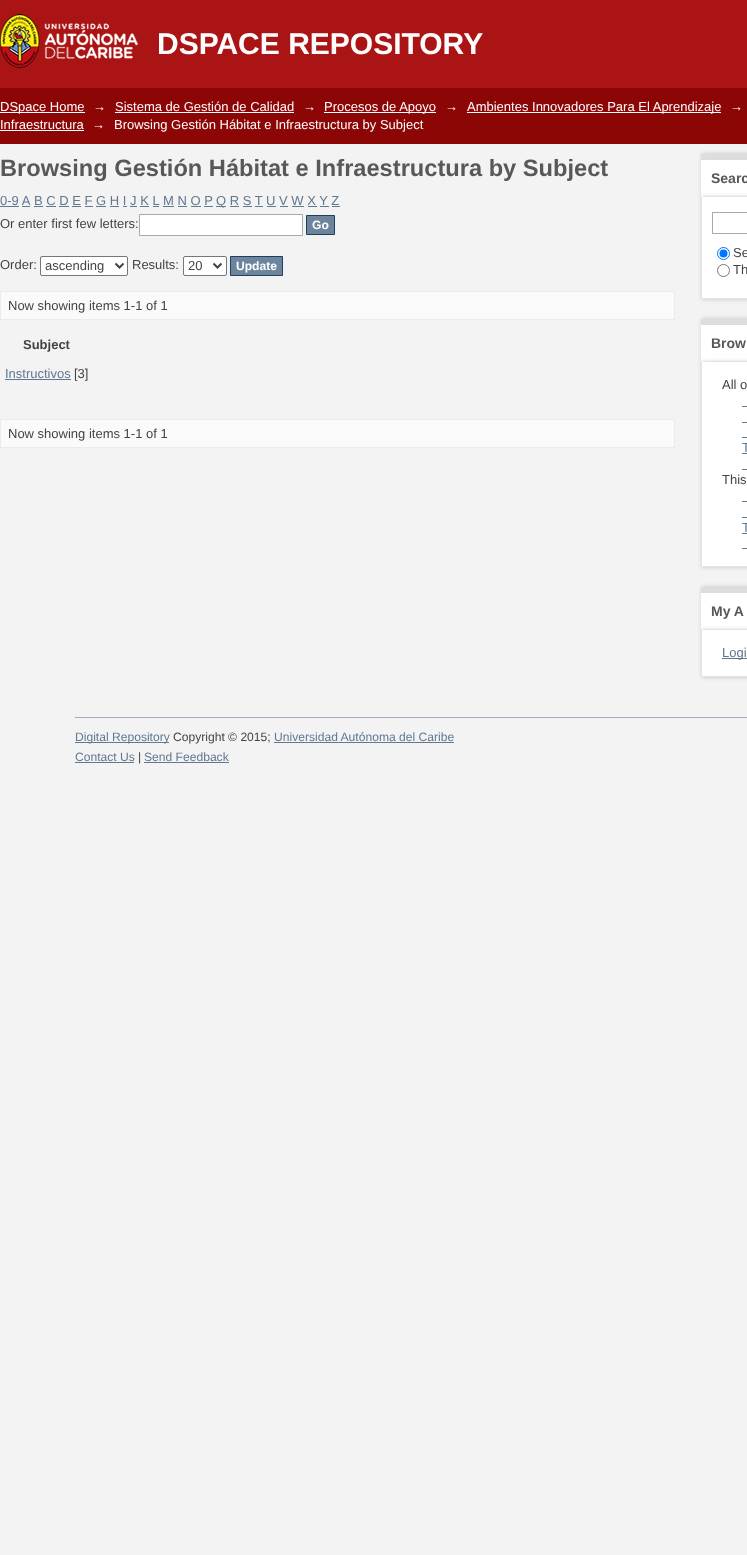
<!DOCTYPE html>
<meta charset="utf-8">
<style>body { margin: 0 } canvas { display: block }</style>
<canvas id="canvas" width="747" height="1555"></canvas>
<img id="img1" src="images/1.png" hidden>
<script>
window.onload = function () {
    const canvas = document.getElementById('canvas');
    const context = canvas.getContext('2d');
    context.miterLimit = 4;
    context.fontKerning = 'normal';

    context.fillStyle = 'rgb(243, 243, 244)';
    context.fillRect(0, 0, 747, 1555);
    context.fillStyle = 'rgb(171, 20, 20)';
    context.fillRect(0, 0, 747, 88);
    context.drawImage(document.getElementById('img1'), 0, 14, 139, 55);
    context.fillStyle = 'rgb(141, 6, 6)';
    context.fillRect(0, 88, 747, 56);
    context.fillStyle = 'rgb(255, 255, 255)';
    context.fillRect(0, 112, 85, 1);
    context.fillRect(115, 112, 179, 1);
    context.fillRect(324, 112, 112, 1);
    context.fillRect(467, 112, 254, 1);
    context.fillRect(0, 130, 84, 1);
    context.fillStyle = 'rgb(96, 120, 144)';
    context.fillRect(0, 206, 19, 1);
    context.fillRect(34, 206, 9, 1);
    context.fillRect(163, 206, 11, 1);
    context.fillRect(216, 206, 10, 1);
    context.fillRect(22, 206, 8, 1);
    context.fillRect(46, 206, 10, 1);
    context.fillRect(59, 206, 10, 1);
    context.fillRect(72, 206, 9, 1);
    context.fillRect(85, 206, 8, 1);
    context.fillRect(96, 206, 10, 1);
    context.fillRect(110, 206, 9, 1);
    context.fillRect(123, 206, 4, 1);
    context.fillRect(130, 206, 7, 1);
    context.fillRect(140, 206, 9, 1);
    context.fillRect(153, 206, 6, 1);
    context.fillRect(178, 206, 9, 1);
    context.fillRect(191, 206, 10, 1);
    context.fillRect(204, 206, 9, 1);
    context.fillRect(230, 206, 9, 1);
    context.fillRect(243, 206, 9, 1);
    context.fillRect(255, 206, 8, 1);
    context.fillRect(267, 206, 9, 1);
    context.fillRect(280, 206, 8, 1);
    context.fillRect(292, 206, 12, 1);
    context.fillRect(308, 206, 9, 1);
    context.fillRect(320, 206, 9, 1);
    context.fillRect(332, 206, 8, 1);
    context.fillStyle = 'rgb(255, 255, 255)';
    context.beginPath();
    context.rect(139.5, 214.5, 163, 21);
    context.fill();
    context.strokeStyle = 'rgb(170, 170, 170)';
    context.stroke();
    context.fillStyle = 'rgb(109, 133, 156)';
    context.beginPath();
    context.rect(306.5, 215.5, 28, 19);
    context.fill();
    context.strokeStyle = 'rgb(31, 63, 94)';
    context.stroke();
    context.fillStyle = 'rgb(255, 255, 255)';
    context.beginPath();
    context.roundRect(40.5, 256.5, 87, 19, 1.5);
    context.fill();
    context.strokeStyle = 'rgb(118, 118, 118)';
    context.stroke();
    context.beginPath();
    context.moveTo(115.5, 263.5);
    context.lineTo(119.5, 267.5);
    context.lineTo(123.5, 263.5);
    context.strokeStyle = 'rgb(68, 68, 68)';
    context.lineWidth = 2;
    context.stroke();
    context.beginPath();
    context.roundRect(183.5, 256.5, 43, 19, 1.5);
    context.fill();
    context.strokeStyle = 'rgb(118, 118, 118)';
    context.lineWidth = 1;
    context.stroke();
    context.beginPath();
    context.moveTo(213.5, 263.5);
    context.lineTo(217.5, 267.5);
    context.lineTo(221.5, 263.5);
    context.strokeStyle = 'rgb(68, 68, 68)';
    context.lineWidth = 2;
    context.stroke();
    context.fillStyle = 'rgb(109, 133, 156)';
    context.beginPath();
    context.rect(230.5, 256.5, 52, 19);
    context.fill();
    context.strokeStyle = 'rgb(31, 63, 94)';
    context.lineWidth = 1;
    context.stroke();
    context.fillStyle = 'rgb(250, 250, 250)';
    context.beginPath();
    context.rect(0.5, 291.5, 674, 28);
    context.fill();
    context.strokeStyle = 'rgb(235, 235, 235)';
    context.stroke();
    context.fillStyle = 'rgb(96, 120, 144)';
    context.fillRect(5, 379, 66, 1);
    context.fillStyle = 'rgb(250, 250, 250)';
    context.beginPath();
    context.rect(0.5, 419.5, 674, 28);
    context.fill();
    context.stroke();
    context.fillStyle = 'rgb(192, 192, 192)';
    context.filter = 'blur(2px)';
    context.beginPath();
    context.rect(702, 154, 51, 43);
    context.fill();
    context.filter = 'none';
    context.fillStyle = 'rgb(255, 255, 255)';
    context.fillRect(701, 160, 46, 37);
    context.fillStyle = 'rgb(221, 221, 221)';
    context.fillRect(701, 154, 46, 6);
    context.fillStyle = 'rgb(192, 192, 192)';
    context.filter = 'blur(2px)';
    context.beginPath();
    context.rect(702, 197, 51, 102);
    context.fill();
    context.filter = 'none';
    context.fillStyle = 'rgb(255, 255, 255)';
    context.fillRect(702, 197, 45, 101);
    context.fillStyle = 'rgb(216, 232, 235)';
    context.fillRect(701, 298, 46, 1);
    context.fillRect(701, 197, 1, 102);
    context.strokeStyle = 'rgb(170, 170, 170)';
    context.strokeRect(712.5, 212.5, 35, 21);
    context.beginPath();
    context.arc(723.5, 253.5, 6, 0, 2 * Math.PI);
    context.strokeStyle = 'rgb(0, 117, 255)';
    context.stroke();
    context.fillStyle = 'rgb(0, 117, 255)';
    context.beginPath();
    context.arc(723.5, 253.5, 4, 0, 2 * Math.PI);
    context.fill();
    context.beginPath();
    context.arc(723.5, 270.5, 6, 0, 2 * Math.PI);
    context.strokeStyle = 'rgb(118, 118, 118)';
    context.stroke();
    context.fillStyle = 'rgb(192, 192, 192)';
    context.filter = 'blur(2px)';
    context.beginPath();
    context.rect(702, 319, 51, 43);
    context.fill();
    context.filter = 'none';
    context.fillStyle = 'rgb(255, 255, 255)';
    context.fillRect(701, 325, 46, 37);
    context.fillStyle = 'rgb(221, 221, 221)';
    context.fillRect(701, 319, 46, 6);
    context.fillStyle = 'rgb(192, 192, 192)';
    context.filter = 'blur(2px)';
    context.beginPath();
    context.rect(702, 362, 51, 205);
    context.fill();
    context.filter = 'none';
    context.fillStyle = 'rgb(255, 255, 255)';
    context.fillRect(702, 362, 45, 204);
    context.fillStyle = 'rgb(216, 232, 235)';
    context.fillRect(701, 566, 46, 1);
    context.fillRect(701, 362, 1, 205);
    context.fillStyle = 'rgb(96, 120, 144)';
    context.fillRect(742, 406, 5, 1);
    context.fillRect(742, 422, 5, 1);
    context.fillRect(742, 437, 5, 1);
    context.fillRect(742, 453, 5, 1);
    context.fillRect(742, 469, 5, 1);
    context.fillRect(742, 501, 5, 1);
    context.fillRect(742, 517, 5, 1);
    context.fillRect(742, 533, 5, 1);
    context.fillRect(742, 548, 5, 1);
    context.fillStyle = 'rgb(192, 192, 192)';
    context.filter = 'blur(2px)';
    context.beginPath();
    context.rect(702, 587, 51, 43);
    context.fill();
    context.filter = 'none';
    context.fillStyle = 'rgb(255, 255, 255)';
    context.fillRect(701, 593, 46, 37);
    context.fillStyle = 'rgb(221, 221, 221)';
    context.fillRect(701, 587, 46, 6);
    context.fillStyle = 'rgb(192, 192, 192)';
    context.filter = 'blur(2px)';
    context.beginPath();
    context.rect(702, 630, 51, 47);
    context.fill();
    context.filter = 'none';
    context.fillStyle = 'rgb(255, 255, 255)';
    context.fillRect(702, 630, 45, 46);
    context.fillStyle = 'rgb(216, 232, 235)';
    context.fillRect(701, 676, 46, 1);
    context.fillRect(701, 630, 1, 47);
    context.fillStyle = 'rgb(96, 120, 144)';
    context.fillRect(722, 658, 25, 1);
    context.fillStyle = 'rgb(156, 172, 186)';
    context.fillRect(75, 717, 672, 1);
    context.fillStyle = 'rgb(96, 120, 144)';
    context.fillRect(75, 742, 94, 1);
    context.fillRect(274, 742, 180, 1);
    context.fillRect(75, 762, 59, 1);
    context.fillRect(144, 762, 85, 1);
    context.font = 'bold 30px Liberation Sans';
    context.fillStyle = 'rgb(253, 253, 253)';
    context.fillText('DSPACE REPOSITORY', 157, 54);
    context.font = '13px Liberation Sans';
    context.fillText('DSpace Home', 0, 111);
    context.fillText('→', 93, 111);
    context.fillText('Sistema de Gestión de Calidad', 115, 111);
    context.fillText('→', 303, 111);
    context.fillText('Procesos de Apoyo', 324, 111);
    context.fillText('→', 445, 111);
    context.fillText('Ambientes Innovadores Para El Aprendizaje', 467, 111);
    context.fillText('→', 730, 111);
    context.fillText('Infraestructura', 0, 129);
    context.fillText('→', 92, 129);
    context.fillText('Browsing Gestión Hábitat e Infraestructura by Subject', 114, 129);
    context.font = 'bold 23.65px Liberation Sans';
    context.fillStyle = 'rgb(88, 88, 88)';
    context.fillText('Browsing Gestión Hábitat e Infraestructura by Subject', 0, 176);
    context.font = '13px Liberation Sans';
    context.fillStyle = 'rgb(96, 120, 144)';
    context.fillText('0-9 A', 0, 205);
    context.fillText('B C D E F G H I J K L', 34, 205);
    context.fillText('M N O P', 163, 205);
    context.fillText('Q R S T U V W X Y Z', 216, 205);
    context.fillStyle = 'rgb(68, 68, 68)';
    context.fillText('Or enter first few letters:', 0, 228);
    context.font = 'bold 12.1px Liberation Sans';
    context.fillStyle = 'rgb(253, 253, 253)';
    context.fillText('Go', 312, 229);
    context.font = '13px Liberation Sans';
    context.fillStyle = 'rgb(68, 68, 68)';
    context.fillText('Order:', 0, 269);
    context.fillText('ascending', 45, 270);
    context.fillText('Results:', 132, 269);
    context.fillText('20', 188, 270);
    context.font = 'bold 12.1px Liberation Sans';
    context.fillStyle = 'rgb(253, 253, 253)';
    context.fillText('Update', 236, 270);
    context.font = '13px Liberation Sans';
    context.fillStyle = 'rgb(68, 68, 68)';
    context.fillText('Now showing items 1-1 of 1', 8, 310);
    context.font = 'bold 13px Liberation Sans';
    context.fillText('Subject', 23, 349);
    context.font = '13px Liberation Sans';
    context.fillStyle = 'rgb(96, 120, 144)';
    context.fillText('Instructivos', 5, 378);
    context.fillStyle = 'rgb(68, 68, 68)';
    context.fillText('[3]', 74, 378);
    context.fillText('Now showing items 1-1 of 1', 8, 438);
    context.font = 'bold 14px Liberation Sans';
    context.fillStyle = 'rgb(88, 88, 88)';
    context.fillText('Searc', 711, 183);
    context.font = '13px Liberation Sans';
    context.fillStyle = 'rgb(68, 68, 68)';
    context.fillText('Se', 733, 257);
    context.fillText('Th', 733, 274);
    context.font = 'bold 14px Liberation Sans';
    context.fillStyle = 'rgb(88, 88, 88)';
    context.fillText('Brow', 711, 348);
    context.font = '13px Liberation Sans';
    context.fillStyle = 'rgb(68, 68, 68)';
    context.fillText('All o', 722, 389);
    context.fillStyle = 'rgb(96, 120, 144)';
    context.fillText('T', 742, 452);
    context.fillStyle = 'rgb(68, 68, 68)';
    context.fillText('This', 722, 484);
    context.fillStyle = 'rgb(96, 120, 144)';
    context.fillText('T', 742, 532);
    context.font = 'bold 14px Liberation Sans';
    context.fillStyle = 'rgb(88, 88, 88)';
    context.fillText('My A', 711, 616);
    context.font = '13px Liberation Sans';
    context.fillStyle = 'rgb(96, 120, 144)';
    context.fillText('Logi', 722, 657);
    context.font = '12.1px Liberation Sans';
    context.fillText('Digital Repository', 75, 741);
    context.fillStyle = 'rgb(68, 68, 68)';
    context.fillText('Copyright © 2015;', 173, 741);
    context.fillStyle = 'rgb(96, 120, 144)';
    context.fillText('Universidad Autónoma del Caribe', 274, 741);
    context.fillText('Contact Us', 75, 761);
    context.fillStyle = 'rgb(68, 68, 68)';
    context.fillText('|', 138, 761);
    context.fillStyle = 'rgb(96, 120, 144)';
    context.fillText('Send Feedback', 144, 761);
};
</script>
